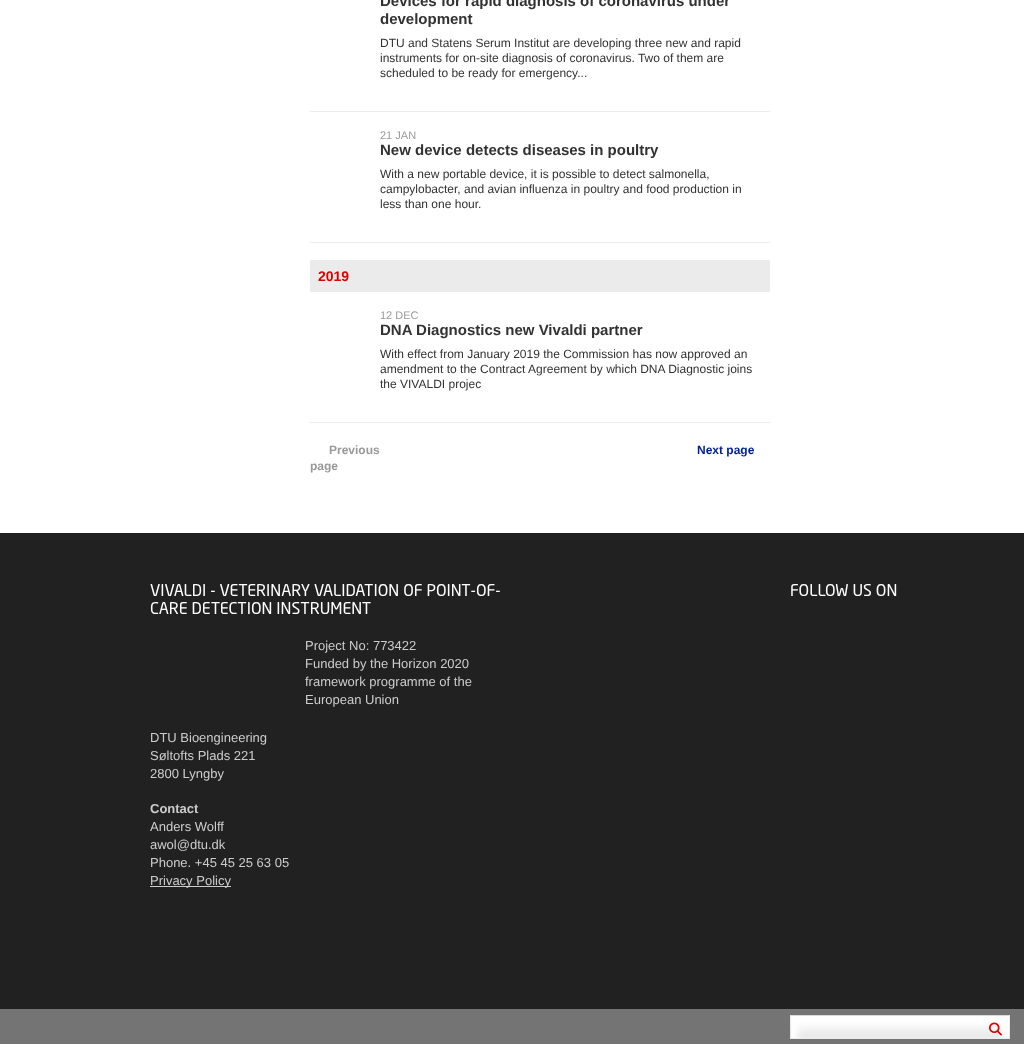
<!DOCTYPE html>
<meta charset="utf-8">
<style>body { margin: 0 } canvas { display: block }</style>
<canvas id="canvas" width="1024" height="1059"></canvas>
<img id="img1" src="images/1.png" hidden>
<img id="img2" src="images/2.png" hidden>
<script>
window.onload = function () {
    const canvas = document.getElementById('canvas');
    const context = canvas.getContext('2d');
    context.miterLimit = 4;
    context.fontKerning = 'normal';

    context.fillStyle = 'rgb(255, 255, 255)';
    context.fillRect(0, 0, 1024, 1059);
    context.fillStyle = 'rgb(235, 235, 235)';
    context.fillRect(310, 111, 460, 1);
    context.fillRect(310, 242, 460, 1);
    context.fillRect(310, 260, 460, 32);
    context.fillRect(310, 422, 460, 1);
    context.fillStyle = 'rgb(33, 33, 33)';
    context.fillRect(0, 533, 1024, 476);
    context.fillStyle = 'rgb(204, 204, 204)';
    context.fillRect(150, 886, 81, 1);
    context.fillStyle = 'rgb(116, 116, 116)';
    context.fillRect(0, 1009, 1024, 35);
    context.drawImage(document.getElementById('img1'), 790, 1015, 220, 24);
    context.drawImage(document.getElementById('img2'), 989, 1022, 13, 14);
    context.font = 'bold 15px Liberation Sans';
    context.fillStyle = 'rgb(50, 50, 50)';
    context.fillText('Devices for rapid diagnosis of coronavirus under', 380, 6);
    context.fillText('development', 380, 24);
    context.font = '12px Liberation Sans';
    context.fillText('DTU and Statens Serum Institut are developing three new and rapid', 380, 47);
    context.fillText('instruments for on-site diagnosis of coronavirus. Two of them are', 380, 62);
    context.fillText('scheduled to be ready for emergency...', 380, 77);
    context.font = '11px Liberation Sans';
    context.fillStyle = 'rgb(153, 153, 153)';
    context.fillText('21 JAN', 380, 139);
    context.font = 'bold 15px Liberation Sans';
    context.fillStyle = 'rgb(50, 50, 50)';
    context.fillText('New device detects diseases in poultry', 380, 155);
    context.font = '12px Liberation Sans';
    context.fillText('With a new portable device, it is possible to detect salmonella,', 380, 178);
    context.fillText('campylobacter, and avian influenza in poultry and food production in', 380, 193);
    context.fillText('less than one hour.', 380, 208);
    context.font = 'bold 14px Liberation Sans';
    context.fillStyle = 'rgb(220, 0, 0)';
    context.fillText('2019', 318, 281);
    context.font = '11px Liberation Sans';
    context.fillStyle = 'rgb(153, 153, 153)';
    context.fillText('12 DEC', 380, 319);
    context.font = 'bold 15px Liberation Sans';
    context.fillStyle = 'rgb(50, 50, 50)';
    context.fillText('DNA Diagnostics new Vivaldi partner', 380, 335);
    context.font = '12px Liberation Sans';
    context.fillText('With effect from January 2019 the Commission has now approved an', 380, 358);
    context.fillText('amendment to the Contract Agreement by which DNA Diagnostic joins', 380, 373);
    context.fillText('the VIVALDI projec', 380, 388);
    context.font = 'bold 12px Liberation Sans';
    context.fillStyle = 'rgb(153, 153, 153)';
    context.fillText('Previous', 329, 454);
    context.fillText('page', 310, 470);
    context.fillStyle = 'rgb(1, 31, 146)';
    context.fillText('Next page', 697, 454);
    context.font = '16px "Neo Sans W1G"';
    context.fillStyle = 'rgb(255, 255, 255)';
    context.fillText('VIVALDI - VETERINARY VALIDATION OF POINT-OF-', 150, 596);
    context.fillText('CARE DETECTION INSTRUMENT', 150, 614);
    context.font = '13px Liberation Sans';
    context.fillStyle = 'rgb(204, 204, 204)';
    context.fillText('Project No: 773422', 305, 650);
    context.fillText('Funded by the Horizon 2020', 305, 668);
    context.fillText('framework programme of the', 305, 686);
    context.fillText('European Union', 305, 704);
    context.fillText('DTU Bioengineering', 150, 742);
    context.fillText('Søltofts Plads 221', 150, 760);
    context.fillText('2800 Lyngby', 150, 778);
    context.font = 'bold 13px Liberation Sans';
    context.fillText('Contact', 150, 813);
    context.font = '13px Liberation Sans';
    context.fillText('Anders Wolff', 150, 831);
    context.fillText('awol@dtu.dk', 150, 849);
    context.fillText('Phone. +45 45 25 63 05', 150, 867);
    context.fillText('Privacy Policy', 150, 885);
    context.font = '16px "Neo Sans W1G"';
    context.fillStyle = 'rgb(255, 255, 255)';
    context.fillText('FOLLOW US ON', 790, 596);
};
</script>
